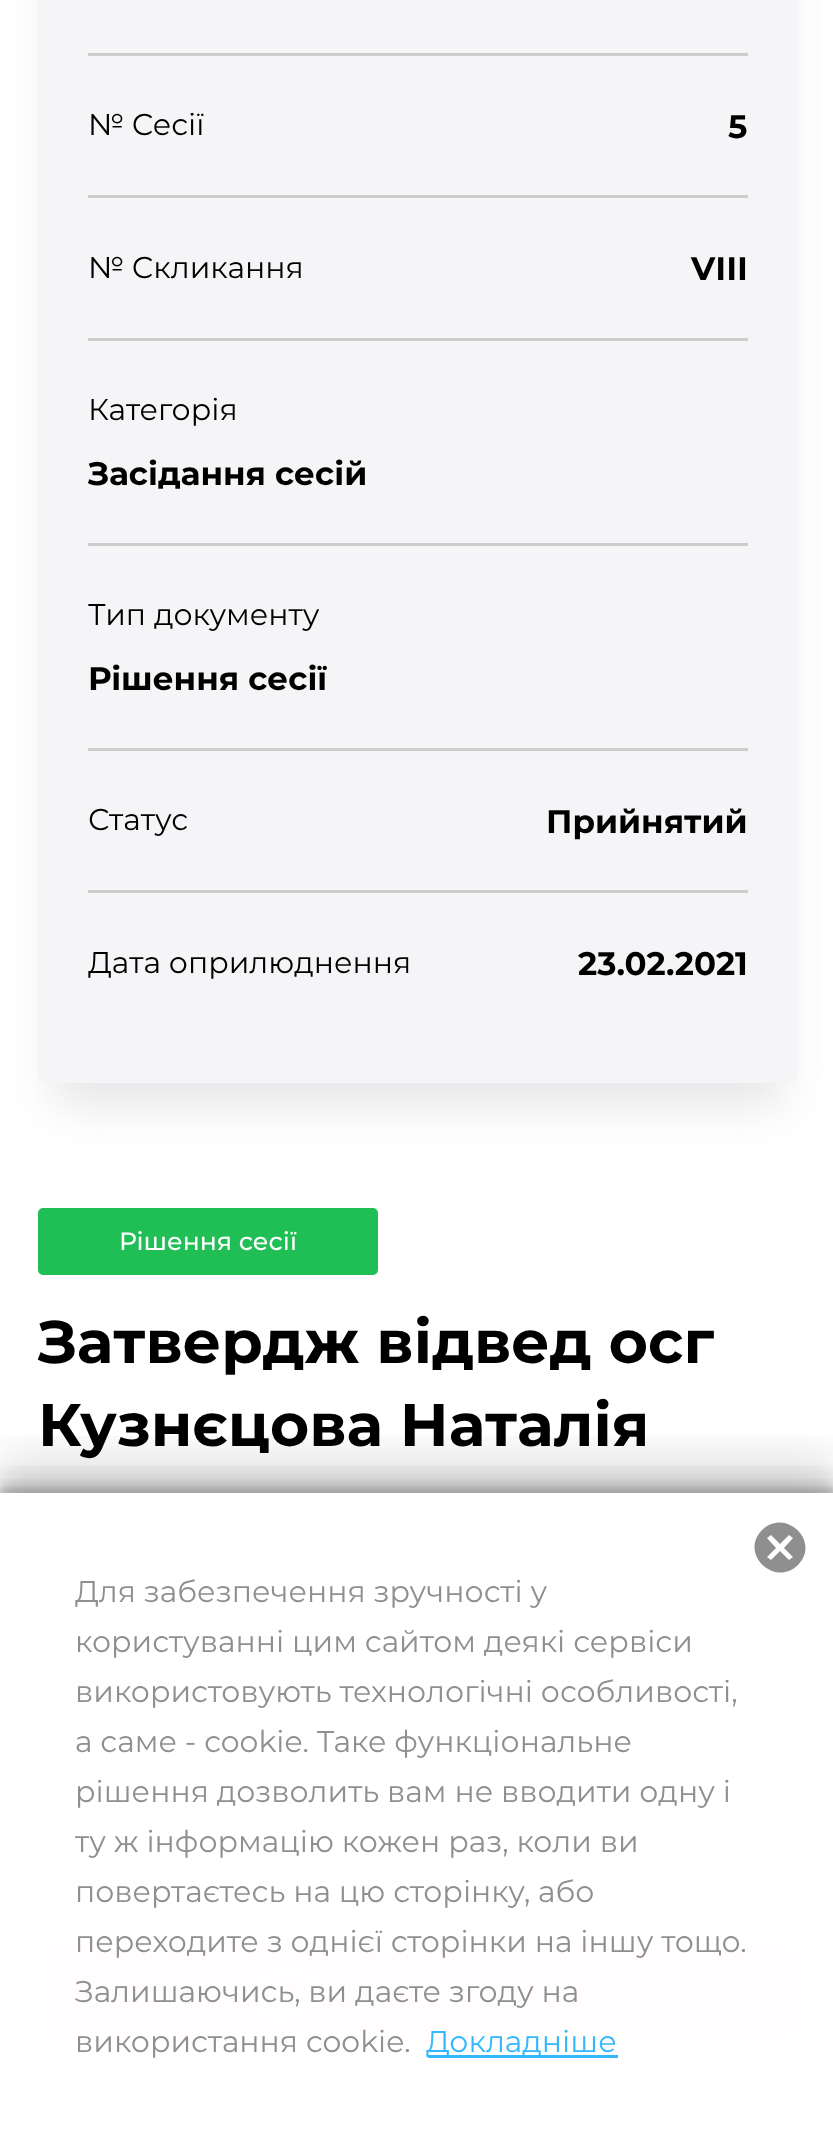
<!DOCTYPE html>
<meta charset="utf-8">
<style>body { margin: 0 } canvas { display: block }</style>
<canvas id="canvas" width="833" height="2142"></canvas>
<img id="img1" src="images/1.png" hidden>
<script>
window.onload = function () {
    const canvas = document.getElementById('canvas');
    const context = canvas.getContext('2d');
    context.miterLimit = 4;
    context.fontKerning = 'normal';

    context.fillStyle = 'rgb(255, 255, 255)';
    context.fillRect(0, 0, 833, 2142);
    context.fillStyle = 'rgba(220, 220, 222, 0.7)';
    context.filter = 'blur(22.5px)';
    context.beginPath();
    context.rect(53, -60, 730, 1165);
    context.fill();
    context.filter = 'none';
    context.fillStyle = 'rgb(245, 245, 247)';
    context.beginPath();
    context.roundRect(38, -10, 760, 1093, 10);
    context.fill();
    context.fillStyle = 'rgb(204, 204, 204)';
    context.fillRect(88, 53, 660, 3);
    context.fillRect(88, 195, 660, 3);
    context.fillRect(88, 338, 660, 3);
    context.fillRect(88, 543, 660, 3);
    context.fillRect(88, 748, 660, 3);
    context.fillRect(88, 890, 660, 3);
    context.fillStyle = 'rgb(32, 191, 85)';
    context.beginPath();
    context.roundRect(39.5, 1209.5, 337, 64, 3.5);
    context.fill();
    context.strokeStyle = 'rgb(32, 191, 85)';
    context.lineWidth = 3;
    context.stroke();
    context.fillStyle = 'rgb(230, 230, 230)';
    context.fillRect(38, 1778, 760, 10);
    context.fillRect(38, 2080, 760, 10);
    context.fillStyle = 'rgb(255, 102, 102)';
    context.beginPath();
    context.roundRect(38, 1943, 760, 100, 10);
    context.fill();
    context.beginPath();
    context.arc(285, 1993, 23.5, 0, 2 * Math.PI);
    context.strokeStyle = 'rgb(255, 255, 255)';
    context.stroke();
    context.drawImage(document.getElementById('img1'), 275, 1985, 20, 20);
    context.save();
    context.beginPath();
    context.rect(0, 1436, 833, 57);
    context.clip();
    context.fillStyle = 'rgba(0, 0, 0, 0.1)';
    context.filter = 'blur(20px)';
    context.beginPath();
    context.rect(0, 1453, 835, 650);
    context.fill();
    context.filter = 'none';
    context.restore();
    context.save();
    context.beginPath();
    context.rect(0, 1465, 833, 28);
    context.clip();
    context.fillStyle = 'rgba(0, 0, 0, 0.1)';
    context.filter = 'blur(10px)';
    context.beginPath();
    context.rect(0, 1473, 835, 650);
    context.fill();
    context.filter = 'none';
    context.restore();
    context.save();
    context.beginPath();
    context.rect(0, 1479, 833, 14);
    context.clip();
    context.fillStyle = 'rgba(0, 0, 0, 0.1)';
    context.filter = 'blur(5px)';
    context.beginPath();
    context.rect(0, 1483, 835, 650);
    context.fill();
    context.filter = 'none';
    context.restore();
    context.save();
    context.beginPath();
    context.rect(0, 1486, 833, 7);
    context.clip();
    context.fillStyle = 'rgba(0, 0, 0, 0.1)';
    context.filter = 'blur(2.5px)';
    context.beginPath();
    context.rect(0, 1488, 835, 650);
    context.fill();
    context.filter = 'none';
    context.restore();
    context.fillStyle = 'rgba(255, 255, 255, 0.99)';
    context.fillRect(38, 1778, 760, 312);
    context.fillStyle = 'rgb(143, 143, 143)';
    context.beginPath();
    context.moveTo(793, 1557);
    context.lineTo(784, 1548);
    context.lineTo(793, 1538);
    context.lineTo(789, 1535);
    context.lineTo(780, 1544);
    context.lineTo(771, 1535);
    context.lineTo(767, 1538);
    context.lineTo(776, 1548);
    context.lineTo(767, 1557);
    context.lineTo(771, 1560);
    context.lineTo(780, 1551);
    context.lineTo(789, 1560);
    context.closePath();
    context.moveTo(762, 1530);
    context.bezierCurveTo(786, 1507, 821, 1542, 798, 1565);
    context.bezierCurveTo(774, 1588, 739, 1553, 762, 1530);
    context.closePath();
    context.fill();
    context.fillStyle = 'rgb(51, 184, 255)';
    context.fillRect(428, 2055, 190, 3);
    context.font = '30px Montserrat';
    context.fillStyle = 'rgb(0, 0, 0)';
    context.fillText('№ Сесії', 88, 135);
    context.font = 'bold 32.5px Montserrat';
    context.fillText('5', 728, 138);
    context.font = '30px Montserrat';
    context.fillText('№ Скликання', 88, 278);
    context.font = 'bold 32.5px Montserrat';
    context.fillText('VІІІ', 691, 280);
    context.font = '30px Montserrat';
    context.fillText('Категорія', 88, 420);
    context.font = 'bold 32.5px Montserrat';
    context.fillText('Засідання сесій', 88, 485);
    context.font = '30px Montserrat';
    context.fillText('Тип документу', 88, 625);
    context.font = 'bold 32.5px Montserrat';
    context.fillText('Рішення сесії', 88, 690);
    context.font = '30px Montserrat';
    context.fillText('Статус', 88, 830);
    context.font = 'bold 32.5px Montserrat';
    context.fillText('Прийнятий', 546, 833);
    context.font = '30px Montserrat';
    context.fillText('Дата оприлюднення', 88, 973);
    context.font = 'bold 32.5px Montserrat';
    context.fillText('23.02.2021', 578, 975);
    context.font = '500 25px Montserrat';
    context.fillStyle = 'rgb(255, 255, 255)';
    context.fillText('Рішення сесії', 119, 1250);
    context.font = 'bold 60px Montserrat';
    context.fillStyle = 'rgb(0, 0, 0)';
    context.fillText('Затвердж відвед осг', 38, 1363);
    context.fillText('Кузнєцова Наталія', 38, 1446);
    context.font = '30px Montserrat';
    context.fillStyle = 'rgb(143, 143, 143)';
    context.fillText('Для забезпечення зручності у', 75, 1602);
    context.fillText('користуванні цим сайтом деякі сервіси', 75, 1652);
    context.fillText('використовують технологічні особливості,', 75, 1702);
    context.fillText('а саме - cookie. Таке функціональне', 75, 1752);
    context.fillText('рішення дозволить вам не вводити одну і', 75, 1802);
    context.fillText('ту ж інформацію кожен раз, коли ви', 75, 1852);
    context.fillText('повертаєтесь на цю сторінку, або', 75, 1902);
    context.fillText('переходите з однієї сторінки на іншу тощо.', 75, 1952);
    context.fillText('Залишаючись, ви даєте згоду на', 75, 2002);
    context.fillText('використання cookie.', 75, 2052);
    context.fillStyle = 'rgb(51, 184, 255)';
    context.fillText('Докладніше', 426, 2052);
};
</script>
